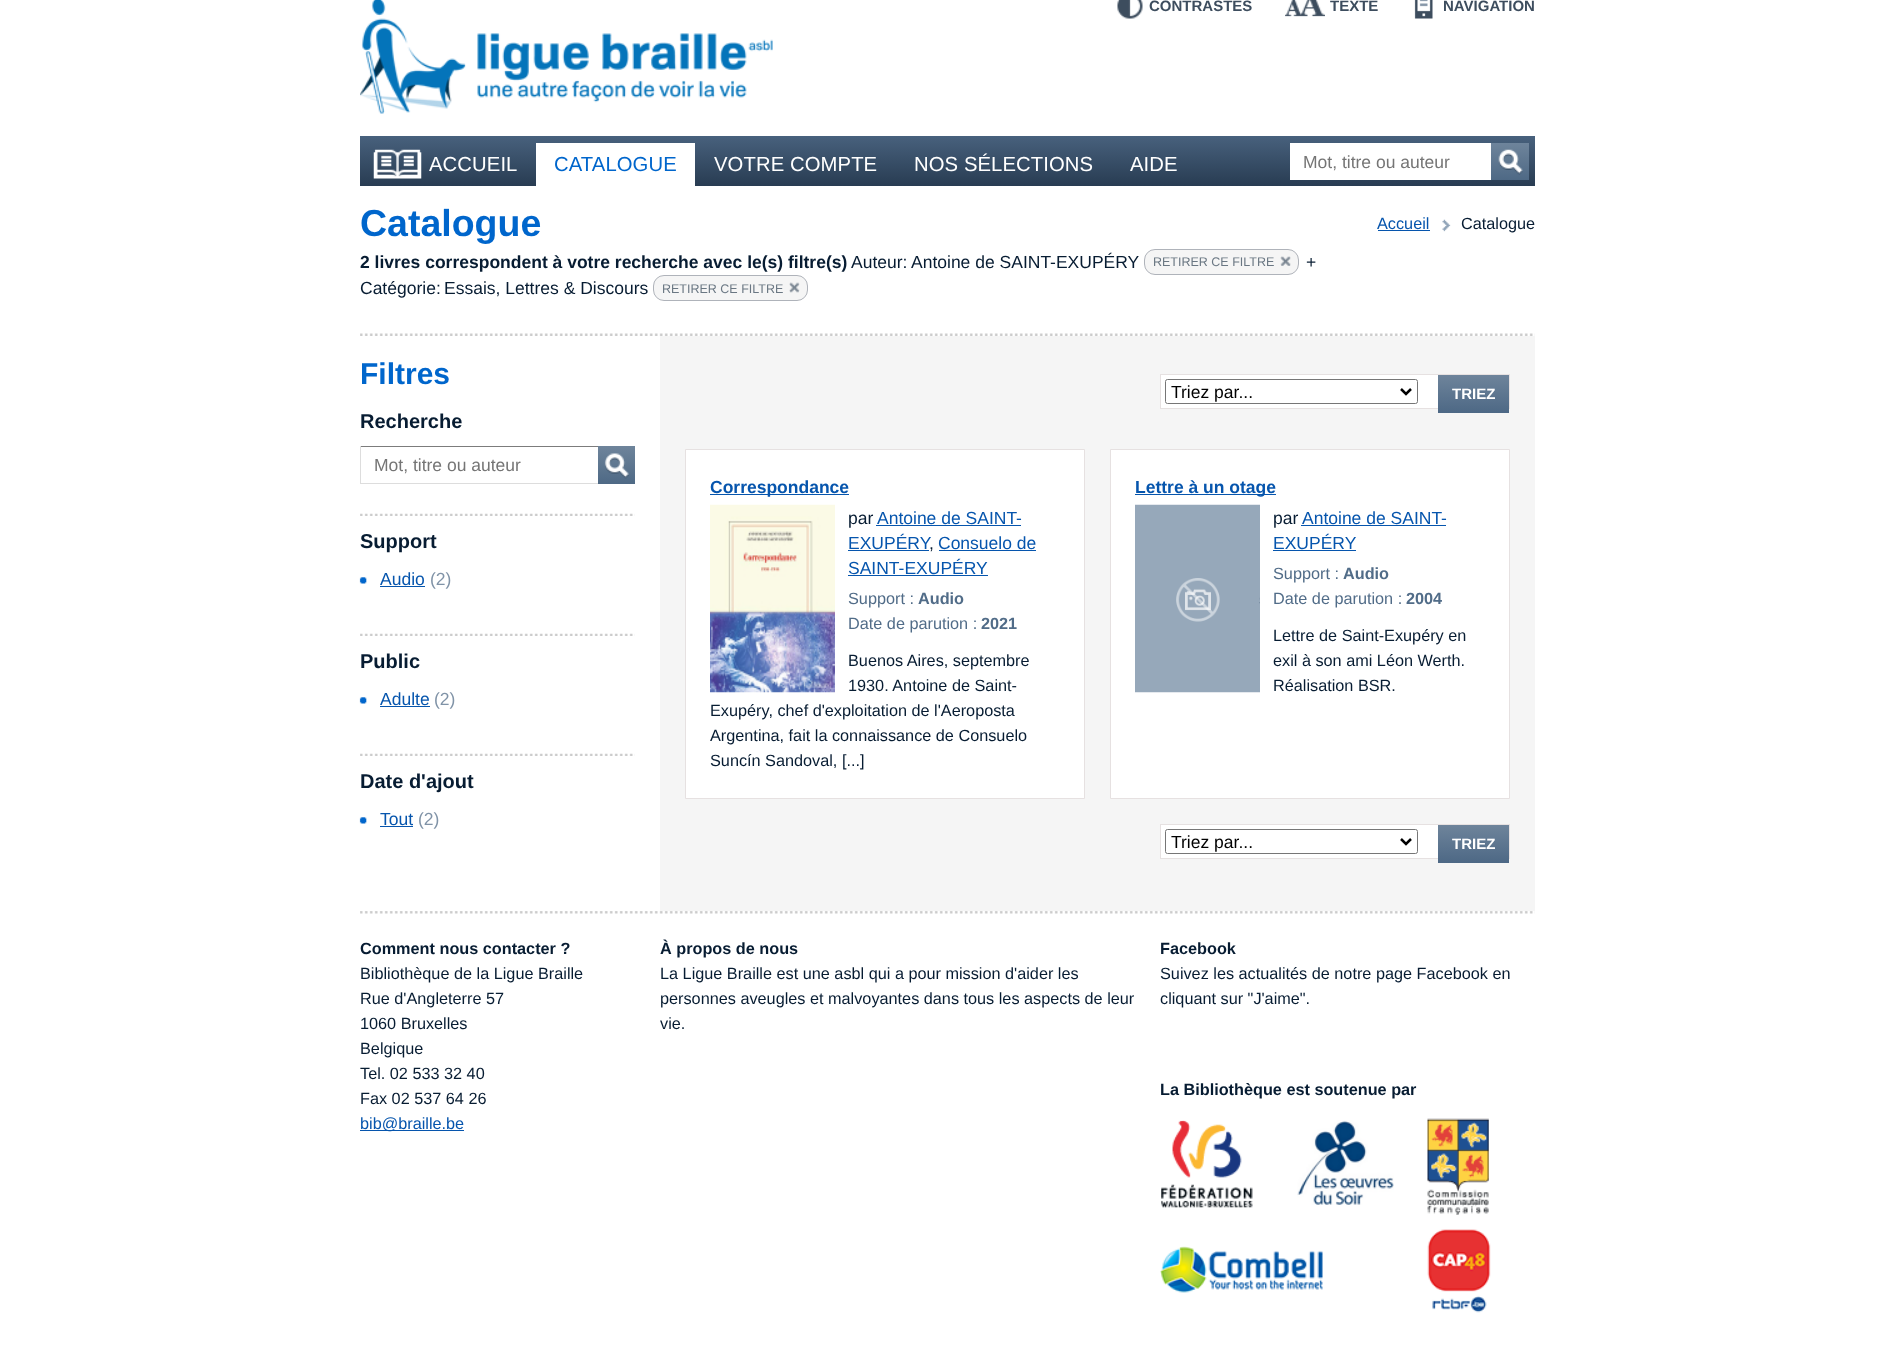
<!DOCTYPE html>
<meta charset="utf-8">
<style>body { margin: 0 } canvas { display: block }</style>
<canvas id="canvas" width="1895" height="1356"></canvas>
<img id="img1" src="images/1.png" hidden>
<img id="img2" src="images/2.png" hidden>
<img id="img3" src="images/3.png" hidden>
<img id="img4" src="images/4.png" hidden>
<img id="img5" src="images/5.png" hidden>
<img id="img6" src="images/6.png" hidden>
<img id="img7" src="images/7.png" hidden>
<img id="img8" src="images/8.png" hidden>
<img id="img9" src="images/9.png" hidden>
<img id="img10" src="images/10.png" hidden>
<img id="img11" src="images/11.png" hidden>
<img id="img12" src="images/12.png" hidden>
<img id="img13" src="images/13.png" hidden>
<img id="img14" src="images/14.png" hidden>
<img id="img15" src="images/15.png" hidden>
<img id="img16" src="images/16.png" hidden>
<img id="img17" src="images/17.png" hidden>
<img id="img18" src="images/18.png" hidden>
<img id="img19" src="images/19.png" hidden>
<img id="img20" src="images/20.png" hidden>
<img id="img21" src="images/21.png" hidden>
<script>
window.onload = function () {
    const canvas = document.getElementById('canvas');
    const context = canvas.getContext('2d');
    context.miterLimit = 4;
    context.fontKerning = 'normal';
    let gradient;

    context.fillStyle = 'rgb(255, 255, 255)';
    context.fillRect(0, 0, 1895, 1356);
    context.drawImage(document.getElementById('img1'), 360, 0, 413, 114);
    context.drawImage(document.getElementById('img2'), 1117, 0, 26, 19);
    context.drawImage(document.getElementById('img3'), 1285, 0, 40, 17);
    context.drawImage(document.getElementById('img4'), 1414, 0, 19, 19);
    gradient = context.createLinearGradient(948, 136, 948, 186);
    gradient.addColorStop(0, 'rgb(72, 97, 125)');
    gradient.addColorStop(1, 'rgb(40, 60, 82)');
    context.fillStyle = gradient;
    context.fillRect(360, 136, 1175, 50);
    context.drawImage(document.getElementById('img5'), 373, 149, 49, 30);
    context.fillStyle = 'rgb(255, 255, 255)';
    context.fillRect(536, 143, 159, 43);
    context.fillRect(1290, 143, 201, 37);
    gradient = context.createLinearGradient(1510, 143, 1510, 180);
    gradient.addColorStop(0, 'rgb(110, 132, 155)');
    gradient.addColorStop(1, 'rgb(78, 105, 133)');
    context.fillStyle = gradient;
    context.fillRect(1491, 143, 38, 37);
    context.drawImage(document.getElementById('img6'), 1498, 149, 25, 26);
    context.drawImage(document.getElementById('img7'), 360, 333, 1175, 3);
    context.fillStyle = 'rgb(6, 85, 173)';
    context.fillRect(1378, 230, 52, 1);
    context.drawImage(document.getElementById('img8'), 1442, 219, 9, 13);
    context.fillStyle = 'rgb(245, 245, 245)';
    context.beginPath();
    context.roundRect(1144.5, 249.5, 154, 25, 10.5);
    context.fill();
    context.strokeStyle = 'rgb(175, 179, 186)';
    context.stroke();
    context.drawImage(document.getElementById('img9'), 1280, 256, 11, 10);
    context.beginPath();
    context.roundRect(653.5, 275.5, 154, 25, 10.5);
    context.fill();
    context.stroke();
    context.drawImage(document.getElementById('img10'), 789, 282, 11, 11);
    context.fillStyle = 'rgb(124, 124, 124)';
    context.fillRect(360, 446, 238, 1);
    context.fillStyle = 'rgb(221, 221, 221)';
    context.fillRect(360, 483, 238, 1);
    context.fillRect(360, 446, 1, 38);
    gradient = context.createLinearGradient(616, 446, 616, 484);
    gradient.addColorStop(0, 'rgb(110, 132, 155)');
    gradient.addColorStop(1, 'rgb(78, 105, 133)');
    context.fillStyle = gradient;
    context.fillRect(598, 446, 37, 38);
    context.drawImage(document.getElementById('img11'), 604, 453, 25, 26);
    context.drawImage(document.getElementById('img12'), 360, 513, 275, 3);
    context.drawImage(document.getElementById('img13'), 359, 577, 8, 7);
    context.fillStyle = 'rgb(6, 85, 173)';
    context.fillRect(380, 586, 45, 1);
    context.drawImage(document.getElementById('img12'), 360, 633, 275, 3);
    context.drawImage(document.getElementById('img13'), 359, 697, 8, 7);
    context.fillRect(380, 706, 50, 1);
    context.drawImage(document.getElementById('img12'), 360, 753, 275, 3);
    context.drawImage(document.getElementById('img13'), 359, 817, 8, 7);
    context.fillRect(380, 826, 33, 1);
    context.fillStyle = 'rgb(245, 245, 245)';
    context.fillRect(660, 336, 875, 575);
    context.fillStyle = 'rgb(255, 255, 255)';
    context.fillRect(1161, 375, 277, 33);
    context.strokeStyle = 'rgb(230, 225, 225)';
    context.strokeRect(1160.5, 374.5, 349, 34);
    context.beginPath();
    context.roundRect(1165.5, 379.5, 252, 24, 2);
    context.strokeStyle = 'rgb(118, 118, 118)';
    context.stroke();
    context.beginPath();
    context.moveTo(1401, 389);
    context.lineTo(1406, 394);
    context.lineTo(1411, 389);
    context.strokeStyle = 'rgb(0, 0, 0)';
    context.lineWidth = 2.5;
    context.stroke();
    gradient = context.createLinearGradient(1473, 375, 1473, 413);
    gradient.addColorStop(0, 'rgb(110, 132, 155)');
    gradient.addColorStop(1, 'rgb(77, 104, 133)');
    context.fillStyle = gradient;
    context.fillRect(1438, 375, 71, 38);
    context.fillStyle = 'rgb(255, 255, 255)';
    context.beginPath();
    context.rect(685.5, 449.5, 399, 349);
    context.fill();
    context.strokeStyle = 'rgb(230, 225, 225)';
    context.lineWidth = 1;
    context.stroke();
    context.fillStyle = 'rgb(6, 85, 173)';
    context.fillRect(710, 494, 139, 1);
    context.drawImage(document.getElementById('img14'), 710, 504, 125, 189);
    context.fillRect(876, 525, 145, 1);
    context.fillRect(848, 550, 81, 1);
    context.fillRect(939, 550, 97, 1);
    context.fillRect(848, 575, 140, 1);
    context.fillStyle = 'rgb(255, 255, 255)';
    context.beginPath();
    context.rect(1110.5, 449.5, 399, 349);
    context.fill();
    context.stroke();
    context.fillStyle = 'rgb(6, 85, 173)';
    context.fillRect(1135, 494, 141, 1);
    context.drawImage(document.getElementById('img15'), 1135, 504, 125, 189);
    context.fillRect(1301, 525, 145, 1);
    context.fillRect(1273, 550, 83, 1);
    context.fillStyle = 'rgb(255, 255, 255)';
    context.fillRect(1161, 825, 277, 33);
    context.strokeRect(1160.5, 824.5, 349, 34);
    context.beginPath();
    context.roundRect(1165.5, 829.5, 252, 24, 2);
    context.strokeStyle = 'rgb(118, 118, 118)';
    context.stroke();
    context.beginPath();
    context.moveTo(1401, 839);
    context.lineTo(1406, 844);
    context.lineTo(1411, 839);
    context.strokeStyle = 'rgb(0, 0, 0)';
    context.lineWidth = 2.5;
    context.stroke();
    gradient = context.createLinearGradient(1473, 825, 1473, 863);
    gradient.addColorStop(0, 'rgb(110, 132, 155)');
    gradient.addColorStop(1, 'rgb(77, 104, 133)');
    context.fillStyle = gradient;
    context.fillRect(1438, 825, 71, 38);
    context.drawImage(document.getElementById('img16'), 360, 911, 1175, 3);
    context.fillStyle = 'rgb(6, 85, 173)';
    context.fillRect(360, 1130, 104, 1);
    context.drawImage(document.getElementById('img17'), 1161, 1120, 92, 88);
    context.drawImage(document.getElementById('img18'), 1297, 1120, 97, 85);
    context.drawImage(document.getElementById('img19'), 1427, 1118, 62, 97);
    context.drawImage(document.getElementById('img20'), 1160, 1246, 163, 47);
    context.drawImage(document.getElementById('img21'), 1427, 1229, 64, 84);
    context.font = 'bold 15px Liberation Sans';
    context.fillStyle = 'rgb(61, 77, 94)';
    context.fillText('CONTRASTES', 1149, 11);
    context.fillText('TEXTE', 1330, 11);
    context.fillText('NAVIGATION', 1443, 11);
    context.letterSpacing = '0.1px';
    context.font = '20.25px Liberation Sans';
    context.fillStyle = 'rgb(255, 255, 255)';
    context.fillText('ACCUEIL', 429, 171);
    context.fillStyle = 'rgb(0, 102, 204)';
    context.fillText('CATALOGUE', 554, 171);
    context.fillStyle = 'rgb(255, 255, 255)';
    context.fillText('VOTRE COMPTE', 714, 171);
    context.fillText('NOS SÉLECTIONS', 914, 171);
    context.fillText('AIDE', 1130, 171);
    context.letterSpacing = '0px';
    context.font = '17.5px Liberation Sans';
    context.fillStyle = 'rgb(117, 117, 117)';
    context.fillText('Mot, titre ou auteur', 1303, 168);
    context.font = 'bold 37.5px Liberation Sans';
    context.fillStyle = 'rgb(0, 102, 204)';
    context.fillText('Catalogue', 360, 236);
    context.font = '16.25px Liberation Sans';
    context.fillStyle = 'rgb(6, 85, 173)';
    context.fillText('Accueil', 1377, 229);
    context.fillStyle = 'rgb(7, 28, 50)';
    context.fillText('Catalogue', 1461, 229);
    context.font = 'bold 17.5px Liberation Sans';
    context.fillText('2 livres correspondent à votre recherche avec le(s) filtre(s)', 360, 268);
    context.font = '17.5px Liberation Sans';
    context.fillText('Auteur:', 851, 268);
    context.fillText('Antoine de SAINT-EXUPÉRY', 911, 268);
    context.font = '12.5px Liberation Sans';
    context.fillStyle = 'rgb(106, 119, 131)';
    context.fillText('RETIRER CE FILTRE', 1153, 266);
    context.font = '17.5px Liberation Sans';
    context.fillStyle = 'rgb(7, 28, 50)';
    context.fillText('+', 1306, 268);
    context.fillText('Catégorie:', 360, 294);
    context.fillText('Essais, Lettres & Discours', 444, 294);
    context.font = '12.5px Liberation Sans';
    context.fillStyle = 'rgb(106, 119, 131)';
    context.fillText('RETIRER CE FILTRE', 662, 293);
    context.font = 'bold 30px Liberation Sans';
    context.fillStyle = 'rgb(0, 102, 204)';
    context.fillText('Filtres', 360, 384);
    context.font = 'bold 20px Liberation Sans';
    context.fillStyle = 'rgb(7, 28, 50)';
    context.fillText('Recherche', 360, 428);
    context.font = '17.5px Liberation Sans';
    context.fillStyle = 'rgb(117, 117, 117)';
    context.fillText('Mot, titre ou auteur', 374, 471);
    context.font = 'bold 20px Liberation Sans';
    context.fillStyle = 'rgb(7, 28, 50)';
    context.fillText('Support', 360, 548);
    context.font = '17.5px Liberation Sans';
    context.fillStyle = 'rgb(6, 85, 173)';
    context.fillText('Audio', 380, 585);
    context.fillStyle = 'rgb(128, 147, 167)';
    context.fillText('(2)', 430, 585);
    context.font = 'bold 20px Liberation Sans';
    context.fillStyle = 'rgb(7, 28, 50)';
    context.fillText('Public', 360, 668);
    context.font = '17.5px Liberation Sans';
    context.fillStyle = 'rgb(6, 85, 173)';
    context.fillText('Adulte', 380, 705);
    context.fillStyle = 'rgb(128, 147, 167)';
    context.fillText('(2)', 434, 705);
    context.font = 'bold 20px Liberation Sans';
    context.fillStyle = 'rgb(7, 28, 50)';
    context.fillText('Date d\'ajout', 360, 788);
    context.font = '17.5px Liberation Sans';
    context.fillStyle = 'rgb(6, 85, 173)';
    context.fillText('Tout', 380, 825);
    context.fillStyle = 'rgb(128, 147, 167)';
    context.fillText('(2)', 418, 825);
    context.fillStyle = 'rgb(0, 0, 0)';
    context.fillText('Triez par...', 1171, 398);
    context.font = 'bold 15px Liberation Sans';
    context.fillStyle = 'rgb(255, 255, 255)';
    context.fillText('TRIEZ', 1452, 399);
    context.font = 'bold 17.5px Liberation Sans';
    context.fillStyle = 'rgb(6, 85, 173)';
    context.fillText('Correspondance', 710, 493);
    context.font = '17.5px Liberation Sans';
    context.fillStyle = 'rgb(7, 28, 50)';
    context.fillText('par', 848, 524);
    context.fillStyle = 'rgb(6, 85, 173)';
    context.fillText('Antoine de SAINT-', 877, 524);
    context.fillText('EXUPÉRY', 848, 549);
    context.fillText('Consuelo de', 938, 549);
    context.fillStyle = 'rgb(7, 28, 50)';
    context.fillText(',', 929, 549);
    context.fillStyle = 'rgb(6, 85, 173)';
    context.fillText('SAINT-EXUPÉRY', 848, 574);
    context.font = '16.25px Liberation Sans';
    context.fillStyle = 'rgb(81, 108, 136)';
    context.fillText('Support :', 848, 604);
    context.font = 'bold 16.25px Liberation Sans';
    context.fillText('Audio', 918, 604);
    context.font = '16.25px Liberation Sans';
    context.fillText('Date de parution :', 848, 629);
    context.font = 'bold 16.25px Liberation Sans';
    context.fillText('2021', 981, 629);
    context.font = '16.25px Liberation Sans';
    context.fillStyle = 'rgb(7, 28, 50)';
    context.fillText('Buenos Aires, septembre', 848, 666);
    context.fillText('1930. Antoine de Saint-', 848, 691);
    context.fillText('Exupéry, chef d\'exploitation de l\'Aeroposta', 710, 716);
    context.fillText('Argentina, fait la connaissance de Consuelo', 710, 741);
    context.fillText('Suncín Sandoval, [...]', 710, 766);
    context.font = 'bold 17.5px Liberation Sans';
    context.fillStyle = 'rgb(6, 85, 173)';
    context.fillText('Lettre à un otage', 1135, 493);
    context.font = '17.5px Liberation Sans';
    context.fillStyle = 'rgb(7, 28, 50)';
    context.fillText('par', 1273, 524);
    context.fillStyle = 'rgb(6, 85, 173)';
    context.fillText('Antoine de SAINT-', 1302, 524);
    context.fillText('EXUPÉRY', 1273, 549);
    context.font = '16.25px Liberation Sans';
    context.fillStyle = 'rgb(81, 108, 136)';
    context.fillText('Support :', 1273, 579);
    context.font = 'bold 16.25px Liberation Sans';
    context.fillText('Audio', 1343, 579);
    context.font = '16.25px Liberation Sans';
    context.fillText('Date de parution :', 1273, 604);
    context.font = 'bold 16.25px Liberation Sans';
    context.fillText('2004', 1406, 604);
    context.font = '16.25px Liberation Sans';
    context.fillStyle = 'rgb(7, 28, 50)';
    context.fillText('Lettre de Saint-Exupéry en', 1273, 641);
    context.fillText('exil à son ami Léon Werth.', 1273, 666);
    context.fillText('Réalisation BSR.', 1273, 691);
    context.font = '17.5px Liberation Sans';
    context.fillStyle = 'rgb(0, 0, 0)';
    context.fillText('Triez par...', 1171, 848);
    context.font = 'bold 15px Liberation Sans';
    context.fillStyle = 'rgb(255, 255, 255)';
    context.fillText('TRIEZ', 1452, 849);
    context.font = 'bold 16.25px Liberation Sans';
    context.fillStyle = 'rgb(7, 28, 50)';
    context.fillText('Comment nous contacter ?', 360, 954);
    context.font = '16.25px Liberation Sans';
    context.fillText('Bibliothèque de la Ligue Braille', 360, 979);
    context.fillText('Rue d\'Angleterre 57', 360, 1004);
    context.fillText('1060 Bruxelles', 360, 1029);
    context.fillText('Belgique', 360, 1054);
    context.fillText('Tel. 02 533 32 40', 360, 1079);
    context.fillText('Fax 02 537 64 26', 360, 1104);
    context.fillStyle = 'rgb(6, 85, 173)';
    context.fillText('bib@braille.be', 360, 1129);
    context.font = 'bold 16.25px Liberation Sans';
    context.fillStyle = 'rgb(7, 28, 50)';
    context.fillText('À propos de nous', 660, 954);
    context.font = '16.25px Liberation Sans';
    context.fillText('La Ligue Braille est une asbl qui a pour mission d\'aider les', 660, 979);
    context.fillText('personnes aveugles et malvoyantes dans tous les aspects de leur', 660, 1004);
    context.fillText('vie.', 660, 1029);
    context.font = 'bold 16.25px Liberation Sans';
    context.fillText('Facebook', 1160, 954);
    context.font = '16.25px Liberation Sans';
    context.fillText('Suivez les actualités de notre page Facebook en', 1160, 979);
    context.fillText('cliquant sur "J\'aime".', 1160, 1004);
    context.font = 'bold 16.25px Liberation Sans';
    context.fillText('La Bibliothèque est soutenue par', 1160, 1095);
};
</script>
